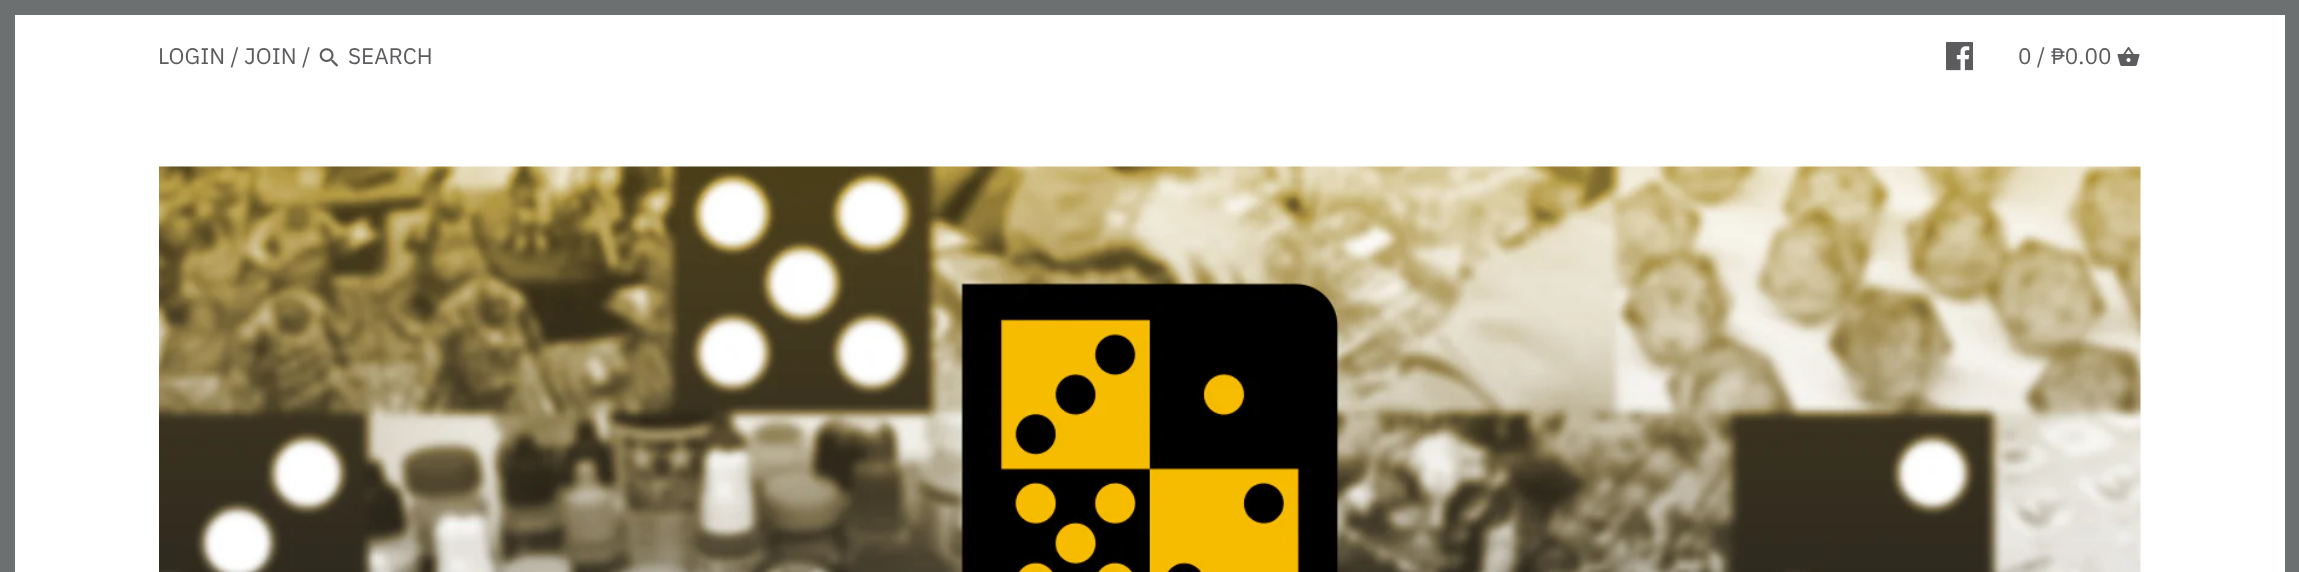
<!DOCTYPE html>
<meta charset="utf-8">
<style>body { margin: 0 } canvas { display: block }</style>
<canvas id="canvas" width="2299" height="572"></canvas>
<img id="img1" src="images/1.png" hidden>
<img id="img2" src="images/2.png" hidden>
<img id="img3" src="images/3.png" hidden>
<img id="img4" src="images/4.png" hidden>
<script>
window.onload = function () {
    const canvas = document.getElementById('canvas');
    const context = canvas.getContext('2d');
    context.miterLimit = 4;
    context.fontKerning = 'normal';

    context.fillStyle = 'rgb(109, 112, 113)';
    context.fillRect(0, 0, 2299, 572);
    context.fillStyle = 'rgb(255, 255, 255)';
    context.fillRect(15, 15, 2270, 557);
    context.drawImage(document.getElementById('img1'), 319, 48, 20, 19);
    context.drawImage(document.getElementById('img2'), 1946, 42, 27, 29);
    context.drawImage(document.getElementById('img3'), 2117, 47, 23, 19);
    context.drawImage(document.getElementById('img4'), 159, 166, 1982, 406);
    context.font = '22.5px IBM Plex Sans';
    context.fillStyle = 'rgb(92, 92, 95)';
    context.fillText('LOGIN / JOIN /', 158, 64);
    context.fillText('SEARCH', 348, 64);
    context.fillText('0 / ₱0.00', 2018, 64);
};
</script>
